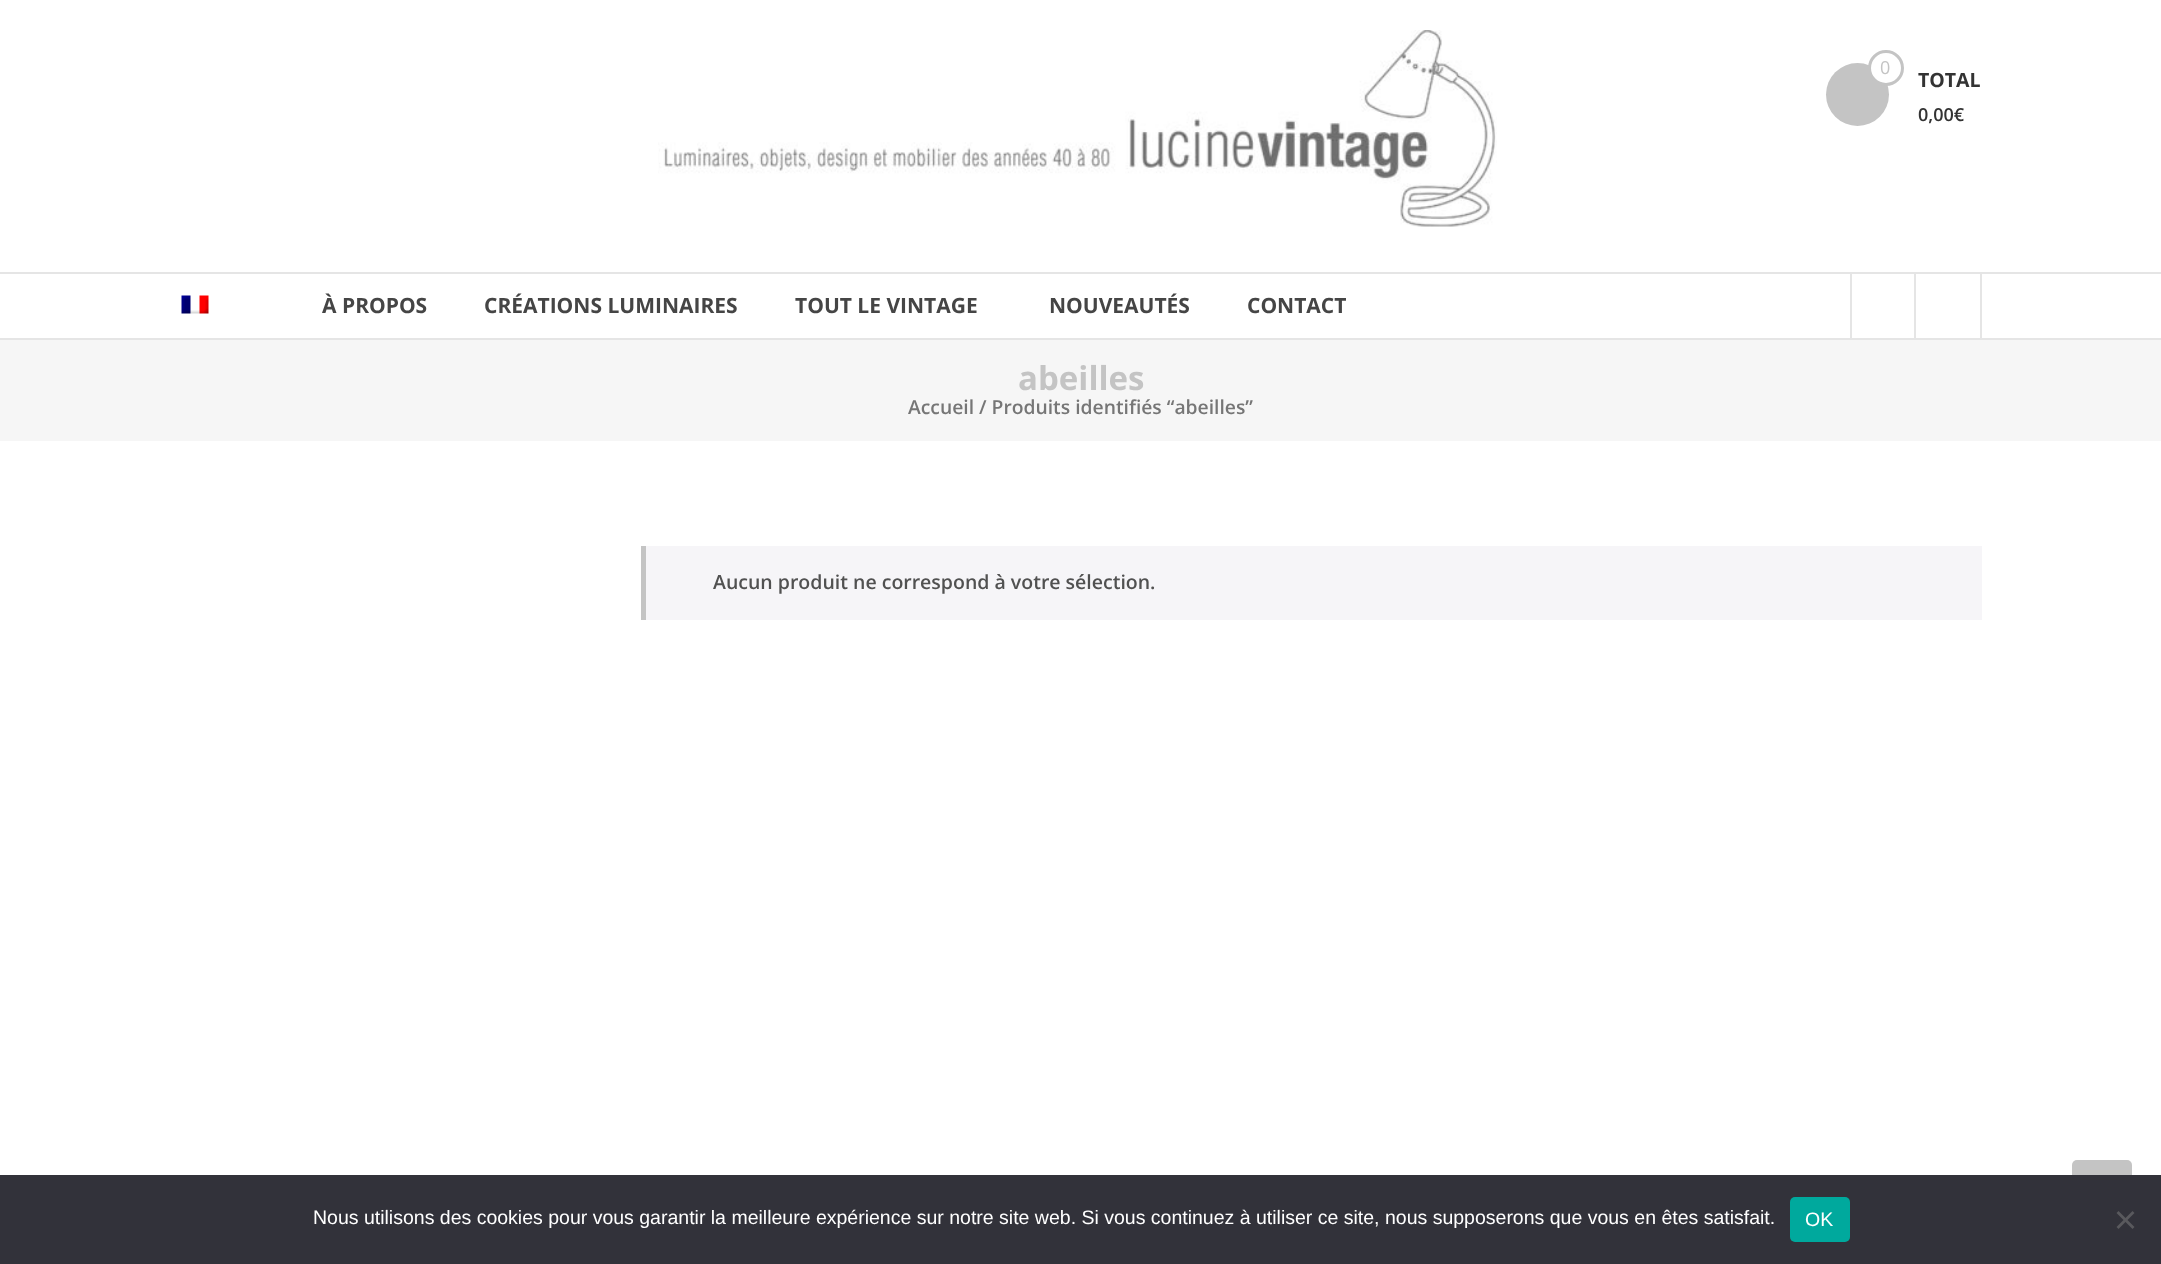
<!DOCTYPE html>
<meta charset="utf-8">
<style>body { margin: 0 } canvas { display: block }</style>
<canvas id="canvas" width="2161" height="1264"></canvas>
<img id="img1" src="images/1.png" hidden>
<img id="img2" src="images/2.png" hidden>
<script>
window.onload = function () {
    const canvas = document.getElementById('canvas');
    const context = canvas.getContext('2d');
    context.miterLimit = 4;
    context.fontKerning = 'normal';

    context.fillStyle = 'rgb(255, 255, 255)';
    context.fillRect(0, 0, 2161, 1264);
    context.drawImage(document.getElementById('img1'), 658, 30, 839, 197);
    context.fillStyle = 'rgb(196, 196, 196)';
    context.beginPath();
    context.arc(1857.5, 94.5, 31.5, 0, 2 * Math.PI);
    context.fill();
    context.fillStyle = 'rgb(255, 255, 255)';
    context.beginPath();
    context.arc(1886, 68, 16.5, 0, 2 * Math.PI);
    context.fill();
    context.strokeStyle = 'rgb(196, 196, 196)';
    context.lineWidth = 3;
    context.stroke();
    context.fillStyle = 'rgb(229, 229, 229)';
    context.fillRect(0, 272, 2161, 2);
    context.fillRect(0, 338, 2161, 2);
    context.drawImage(document.getElementById('img2'), 181, 295, 28, 19);
    context.fillRect(1850, 273, 2, 65);
    context.fillRect(1980, 273, 2, 65);
    context.fillRect(1914, 273, 2, 65);
    context.fillStyle = 'rgb(246, 246, 246)';
    context.fillRect(0, 340, 2161, 101);
    context.fillStyle = 'rgb(246, 245, 248)';
    context.fillRect(646, 546, 1336, 74);
    context.fillStyle = 'rgb(196, 196, 196)';
    context.fillRect(641, 546, 5, 74);
    context.beginPath();
    context.roundRect(2072, 1160, 60, 60, 5);
    context.fill();
    context.fillStyle = 'rgb(50, 50, 58)';
    context.fillRect(0, 1175, 2161, 89);
    context.fillStyle = 'rgb(0, 169, 157)';
    context.beginPath();
    context.roundRect(1790, 1197, 60, 45, 5);
    context.fill();
    context.fillStyle = 'rgb(89, 89, 93)';
    context.beginPath();
    context.moveTo(2132.5, 1211);
    context.lineTo(2134.5, 1213);
    context.lineTo(2118.5, 1229);
    context.lineTo(2116.5, 1227);
    context.closePath();
    context.fill();
    context.beginPath();
    context.moveTo(2116.5, 1213);
    context.lineTo(2118.5, 1211);
    context.lineTo(2134.5, 1227);
    context.lineTo(2132.5, 1229);
    context.closePath();
    context.fill();
    context.font = '18px Open Sans';
    context.fillStyle = 'rgb(196, 196, 196)';
    context.fillText('0', 1880, 74);
    context.font = 'bold 19.5px Open Sans';
    context.fillStyle = 'rgb(51, 51, 51)';
    context.fillText('TOTAL', 1918, 87);
    context.font = '600 18px Open Sans';
    context.fillText('0,00€', 1918, 121);
    context.font = 'bold 21px Open Sans';
    context.fillStyle = 'rgb(69, 69, 69)';
    context.fillText('À PROPOS', 322, 313);
    context.fillText('CRÉATIONS LUMINAIRES', 484, 313);
    context.fillText('TOUT LE VINTAGE', 795, 313);
    context.fillText('NOUVEAUTÉS', 1049, 313);
    context.fillText('CONTACT', 1247, 313);
    context.font = 'bold 33px Open Sans';
    context.fillStyle = 'rgb(196, 196, 196)';
    context.fillText('abeilles', 1018, 390);
    context.font = '600 19.3px Open Sans';
    context.fillStyle = 'rgb(118, 118, 118)';
    context.fillText('Accueil / Produits identifiés “abeilles”', 908, 414);
    context.font = '600 19.5px Open Sans';
    context.fillStyle = 'rgb(81, 81, 81)';
    context.fillText('Aucun produit ne correspond à votre sélection.', 713, 589);
    context.font = '19.5px Liberation Sans';
    context.fillStyle = 'rgb(255, 255, 255)';
    context.fillText('Nous utilisons des cookies pour vous garantir la meilleure expérience sur notre site web. Si vous continuez à utiliser ce site, nous supposerons que vous en êtes satisfait.', 313, 1224);
    context.fillText('OK', 1805, 1226);
};
</script>
